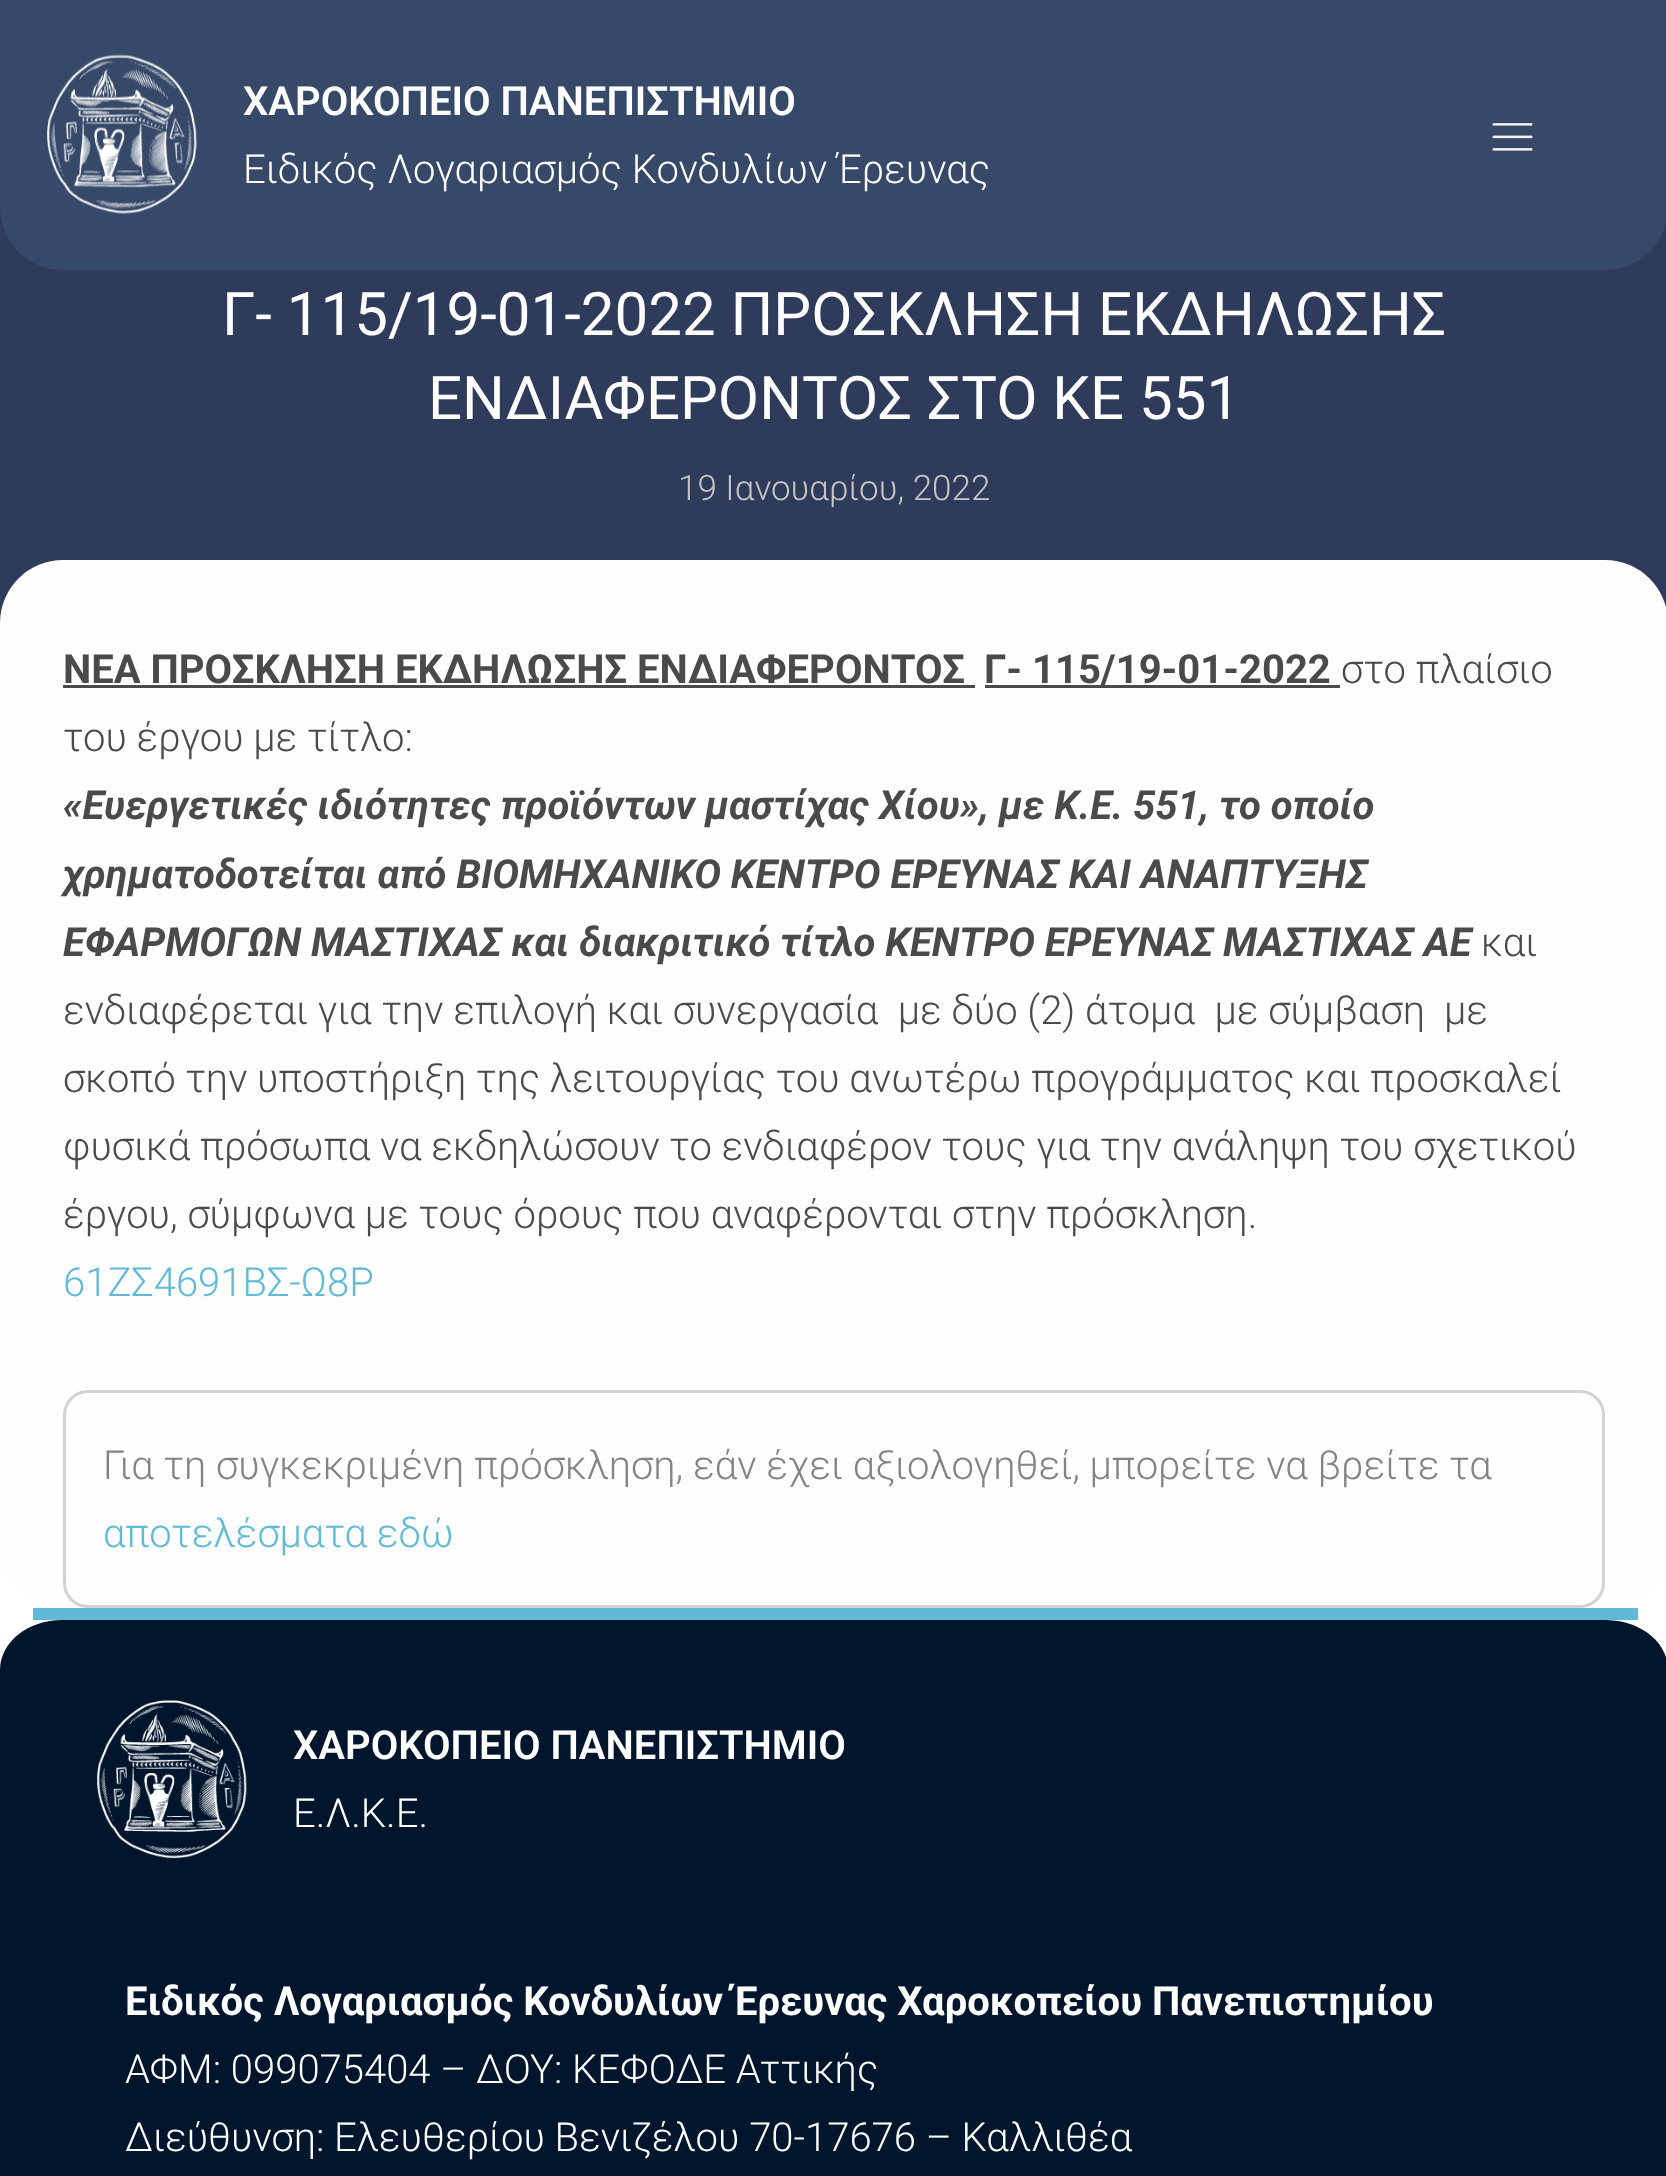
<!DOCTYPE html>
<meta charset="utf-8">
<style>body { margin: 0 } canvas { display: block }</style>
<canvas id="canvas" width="1666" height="2176"></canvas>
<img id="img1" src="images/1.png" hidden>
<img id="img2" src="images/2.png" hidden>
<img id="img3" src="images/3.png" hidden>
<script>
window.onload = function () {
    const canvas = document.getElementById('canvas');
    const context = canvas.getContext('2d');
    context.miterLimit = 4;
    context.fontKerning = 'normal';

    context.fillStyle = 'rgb(255, 255, 255)';
    context.fillRect(0, 0, 1666, 2176);
    context.fillStyle = 'rgb(47, 59, 90)';
    context.fillRect(0, 207, 1666, 416);
    context.fillStyle = 'rgb(54, 73, 104)';
    context.beginPath();
    context.moveTo(0, 0);
    context.lineTo(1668, 0);
    context.lineTo(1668, 207);
    context.bezierCurveTo(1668, 242, 1640, 270, 1605, 270);
    context.lineTo(63, 270);
    context.bezierCurveTo(28, 270, 0, 242, 0, 207);
    context.closePath();
    context.fill();
    context.drawImage(document.getElementById('img1'), 47, 54, 150, 160);
    context.drawImage(document.getElementById('img2'), 1492, 123, 41, 28);
    context.fillStyle = 'rgb(254, 254, 255)';
    context.beginPath();
    context.roundRect(0, 560, 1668, 1048, 63);
    context.fill();
    context.fillStyle = 'rgb(74, 74, 74)';
    context.fillRect(63, 685, 912, 3);
    context.fillRect(985, 685, 355, 3);
    context.beginPath();
    context.roundRect(64.5, 1391.5, 1539, 215, 23.5);
    context.strokeStyle = 'rgb(211, 211, 211)';
    context.lineWidth = 3;
    context.stroke();
    context.fillStyle = 'rgb(1, 22, 45)';
    context.beginPath();
    context.moveTo(62, 1620);
    context.lineTo(1605, 1620);
    context.bezierCurveTo(1640, 1620, 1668, 1642, 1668, 1670);
    context.lineTo(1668, 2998);
    context.lineTo(0, 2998);
    context.lineTo(0, 1670);
    context.bezierCurveTo(0, 1642, 28, 1620, 62, 1620);
    context.closePath();
    context.fill();
    context.fillStyle = 'rgb(95, 186, 213)';
    context.fillRect(33, 1608, 1605, 12);
    context.drawImage(document.getElementById('img3'), 97, 1700, 150, 159);
    context.font = '600 40px Roboto';
    context.fillStyle = 'rgb(255, 255, 255)';
    context.fillText('ΧΑΡΟΚΟΠΕΙΟ ΠΑΝΕΠΙΣΤΗΜΙΟ', 243, 115);
    context.font = '300 40px Roboto';
    context.fillText('Ειδικός Λογαριασμός Κονδυλίων Έρευνας', 243, 183);
    context.font = '60px Roboto';
    context.fillText('Γ- 115/19-01-2022 ΠΡΟΣΚΛΗΣΗ ΕΚΔΗΛΩΣΗΣ', 222, 335);
    context.fillText('ΕΝΔΙΑΦΕΡΟΝΤΟΣ ΣΤΟ ΚΕ 551', 428, 419);
    context.font = '300 35px Roboto';
    context.fillStyle = 'rgb(197, 197, 197)';
    context.fillText('19 Ιανουαρίου, 2022', 678, 500);
    context.font = 'bold 40px Roboto';
    context.fillStyle = 'rgb(74, 74, 74)';
    context.fillText('ΝΕΑ ΠΡΟΣΚΛΗΣΗ ΕΚΔΗΛΩΣΗΣ ΕΝΔΙΑΦΕΡΟΝΤΟΣ', 63, 683);
    context.fillText('Γ- 115/19-01-2022', 984, 683);
    context.font = '300 40px Roboto';
    context.fillText('στο πλαίσιο', 1341, 683);
    context.fillText('του έργου με τίτλο:', 63, 751);
    context.font = 'italic bold 40px Roboto';
    context.fillText('«Ευεργετικές ιδιότητες προϊόντων μαστίχας Χίου», με Κ.Ε. 551, το οποίο', 63, 819);
    context.fillText('χρηματοδοτείται από ΒΙΟΜΗΧΑΝΙΚΟ ΚΕΝΤΡΟ ΕΡΕΥΝΑΣ ΚΑΙ ΑΝΑΠΤΥΞΗΣ', 63, 888);
    context.fillText('ΕΦΑΡΜΟΓΩΝ ΜΑΣΤΙΧΑΣ και διακριτικό τίτλο ΚΕΝΤΡΟ ΕΡΕΥΝΑΣ ΜΑΣΤΙΧΑΣ ΑΕ', 63, 956);
    context.font = '300 40px Roboto';
    context.fillText('και', 1481, 956);
    context.fillText('ενδιαφέρεται για την επιλογή και συνεργασία  με δύο (2) άτομα  με σύμβαση', 63, 1024);
    context.fillText('με', 1444, 1024);
    context.fillText('σκοπό την υποστήριξη της λειτουργίας του ανωτέρω προγράμματος και προσκαλεί', 63, 1092);
    context.fillText('φυσικά πρόσωπα να εκδηλώσουν το ενδιαφέρον τους για την ανάληψη του σχετικού', 63, 1160);
    context.fillText('έργου, σύμφωνα με τους όρους που αναφέρονται στην πρόσκληση.', 63, 1228);
    context.fillStyle = 'rgb(95, 186, 213)';
    context.fillText('61ΖΣ4691ΒΣ-Ω8Ρ', 63, 1296);
    context.fillStyle = 'rgb(131, 131, 132)';
    context.fillText('Για τη συγκεκριμένη πρόσκληση, εάν έχει αξιολογηθεί, μπορείτε να βρείτε τα', 103, 1479);
    context.fillStyle = 'rgb(95, 186, 213)';
    context.fillText('αποτελέσματα εδώ', 103, 1547);
    context.font = '600 40px Roboto';
    context.fillStyle = 'rgb(255, 255, 255)';
    context.fillText('ΧΑΡΟΚΟΠΕΙΟ ΠΑΝΕΠΙΣΤΗΜΙΟ', 293, 1759);
    context.font = '300 40px Roboto';
    context.fillText('Ε.Λ.Κ.Ε.', 293, 1827);
    context.font = 'bold 40px Roboto';
    context.fillText('Ειδικός Λογαριασμός Κονδυλίων Έρευνας Χαροκοπείου Πανεπιστημίου', 125, 2015);
    context.font = '300 40px Roboto';
    context.fillText('ΑΦΜ: 099075404 – ΔΟΥ: ΚΕΦΟΔΕ Αττικής', 125, 2083);
    context.fillText('Διεύθυνση: Ελευθερίου Βενιζέλου 70-17676 – Καλλιθέα', 125, 2151);
};
</script>
